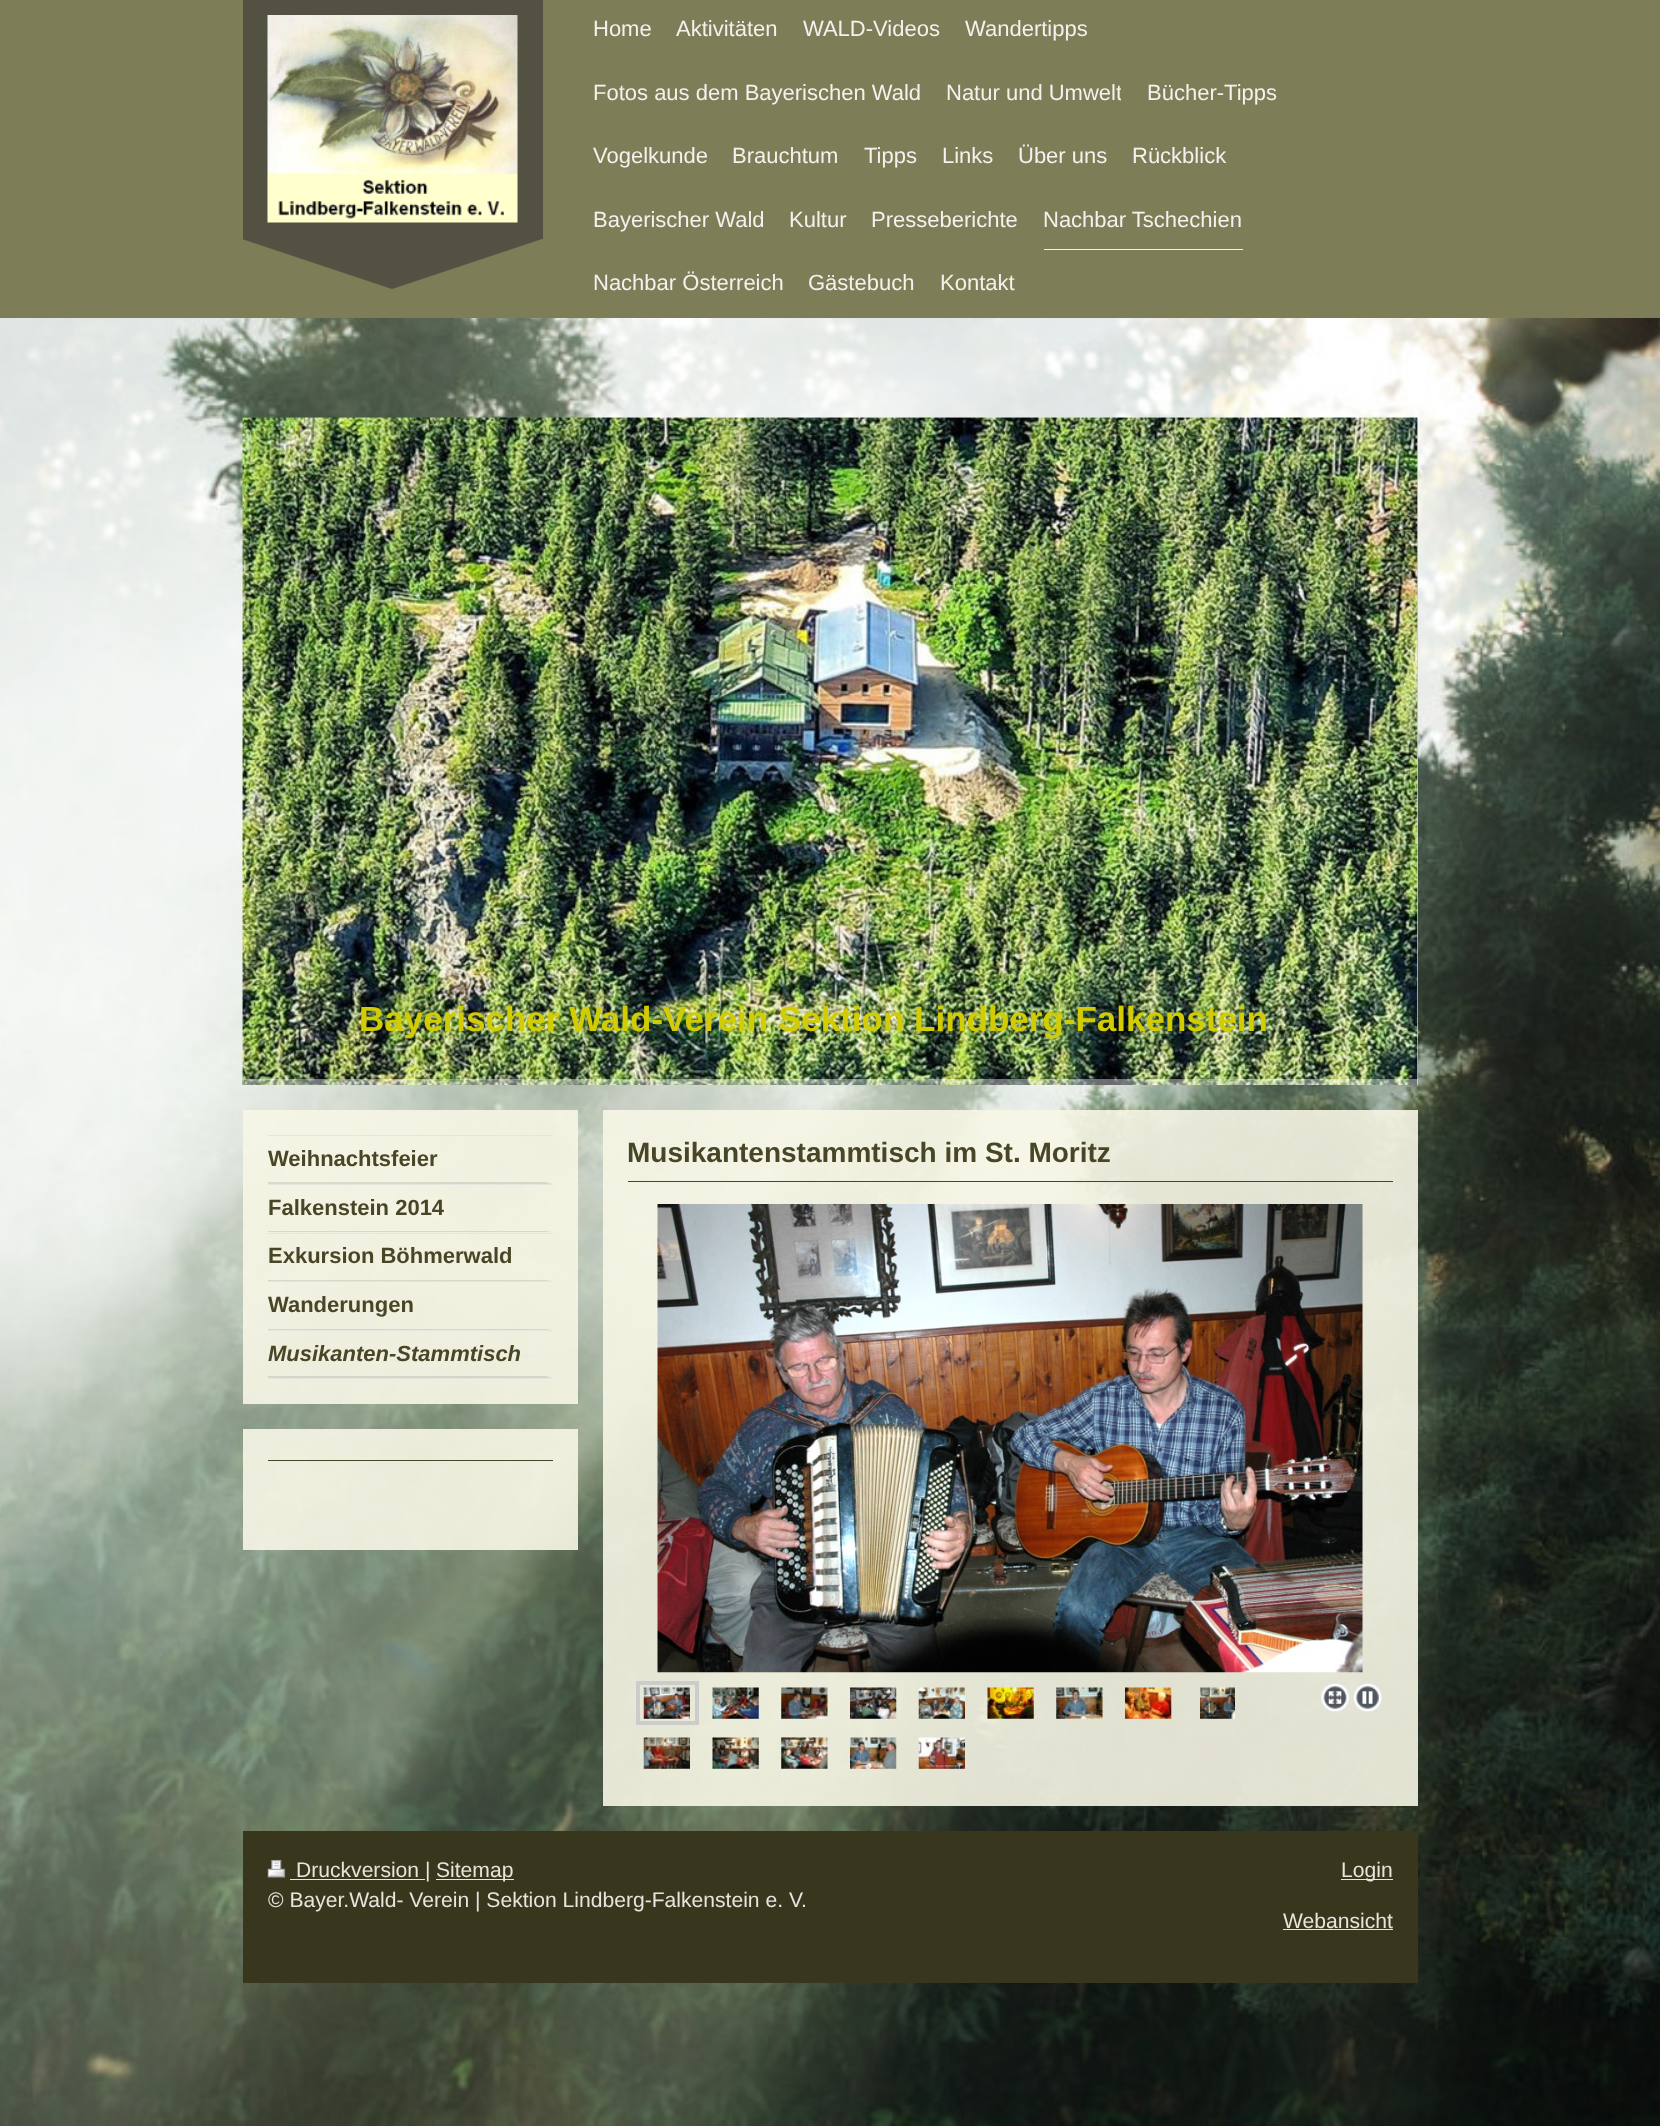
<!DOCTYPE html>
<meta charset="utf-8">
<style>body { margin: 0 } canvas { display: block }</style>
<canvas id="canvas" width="1660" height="2126"></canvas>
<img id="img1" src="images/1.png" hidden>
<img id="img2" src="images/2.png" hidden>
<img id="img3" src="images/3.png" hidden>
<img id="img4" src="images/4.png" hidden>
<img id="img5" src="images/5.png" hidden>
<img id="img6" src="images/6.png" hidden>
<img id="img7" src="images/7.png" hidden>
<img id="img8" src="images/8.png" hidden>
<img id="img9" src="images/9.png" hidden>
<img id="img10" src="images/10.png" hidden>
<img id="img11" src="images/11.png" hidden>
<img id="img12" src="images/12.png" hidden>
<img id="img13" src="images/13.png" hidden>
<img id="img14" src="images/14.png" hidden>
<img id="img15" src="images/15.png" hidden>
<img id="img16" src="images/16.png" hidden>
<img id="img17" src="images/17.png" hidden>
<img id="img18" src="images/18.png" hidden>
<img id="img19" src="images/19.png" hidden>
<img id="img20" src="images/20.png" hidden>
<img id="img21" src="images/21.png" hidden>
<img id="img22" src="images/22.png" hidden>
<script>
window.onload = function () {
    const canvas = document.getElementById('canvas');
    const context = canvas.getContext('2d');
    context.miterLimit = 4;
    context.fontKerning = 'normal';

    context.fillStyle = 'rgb(255, 255, 255)';
    context.fillRect(0, 0, 1660, 2126);
    context.drawImage(document.getElementById('img1'), 0, 318, 1660, 1808);
    context.fillStyle = 'rgb(125, 125, 88)';
    context.fillRect(0, 0, 1660, 318);
    context.fillStyle = 'rgb(83, 81, 65)';
    context.fillRect(243, 0, 300, 239);
    context.drawImage(document.getElementById('img2'), 267, 15, 251, 208);
    context.beginPath();
    context.moveTo(242, 239);
    context.lineTo(542, 239);
    context.lineTo(392, 289);
    context.closePath();
    context.fill();
    context.fillStyle = 'rgb(242, 242, 238)';
    context.fillRect(1044, 249, 199, 1);
    context.drawImage(document.getElementById('img3'), 242, 417, 1176, 668);
    context.fillStyle = 'rgb(204, 204, 204)';
    context.fillRect(1417, 418, 1, 667);
    context.drawImage(document.getElementById('img4'), 242, 417, 1176, 668);
    context.fillStyle = 'rgba(255, 255, 255, 0.42)';
    context.fillRect(243, 1079, 1175, 6);
    context.fillStyle = 'rgba(247, 246, 230, 0.9)';
    context.fillRect(243, 1110, 335, 294);
    context.fillStyle = 'rgb(230, 229, 222)';
    context.fillRect(268, 1135, 285, 1);
    context.fillRect(268, 1184, 285, 1);
    context.fillStyle = 'rgba(0, 0, 0, 0.1)';
    context.beginPath();
    context.moveTo(552, 1184);
    context.lineTo(268, 1184);
    context.lineTo(268, 1182);
    context.lineTo(546, 1182);
    context.closePath();
    context.fill();
    context.fillStyle = 'rgb(230, 229, 222)';
    context.fillRect(268, 1233, 285, 1);
    context.fillStyle = 'rgba(0, 0, 0, 0.1)';
    context.beginPath();
    context.moveTo(552, 1232);
    context.lineTo(268, 1232);
    context.lineTo(268, 1231);
    context.lineTo(546, 1231);
    context.closePath();
    context.fill();
    context.fillStyle = 'rgb(230, 229, 222)';
    context.fillRect(268, 1281, 285, 1);
    context.fillStyle = 'rgba(0, 0, 0, 0.1)';
    context.beginPath();
    context.moveTo(552, 1281);
    context.lineTo(268, 1281);
    context.lineTo(268, 1280);
    context.lineTo(546, 1280);
    context.closePath();
    context.fill();
    context.fillStyle = 'rgb(230, 229, 222)';
    context.fillRect(268, 1330, 285, 1);
    context.fillStyle = 'rgba(0, 0, 0, 0.1)';
    context.beginPath();
    context.moveTo(552, 1330);
    context.lineTo(268, 1330);
    context.lineTo(268, 1329);
    context.lineTo(546, 1329);
    context.closePath();
    context.fill();
    context.fillStyle = 'rgb(230, 229, 222)';
    context.fillRect(268, 1378, 285, 1);
    context.fillStyle = 'rgba(0, 0, 0, 0.1)';
    context.beginPath();
    context.moveTo(552, 1378);
    context.lineTo(268, 1378);
    context.lineTo(268, 1376);
    context.lineTo(546, 1376);
    context.closePath();
    context.fill();
    context.fillStyle = 'rgb(235, 235, 232)';
    context.beginPath();
    context.moveTo(521, 1354);
    context.lineTo(534, 1354);
    context.lineTo(527.5, 1359);
    context.closePath();
    context.fill();
    context.fillStyle = 'rgba(247, 246, 230, 0.9)';
    context.fillRect(243, 1429, 335, 121);
    context.fillStyle = 'rgb(72, 70, 38)';
    context.fillRect(268, 1460, 285, 1);
    context.fillStyle = 'rgba(247, 246, 230, 0.9)';
    context.fillRect(603, 1110, 815, 696);
    context.fillStyle = 'rgb(72, 70, 38)';
    context.fillRect(628, 1181, 765, 1);
    context.drawImage(document.getElementById('img5'), 657, 1204, 706, 469);
    context.strokeStyle = 'rgb(204, 204, 204)';
    context.lineWidth = 4;
    context.strokeRect(638, 1683, 59, 40);
    context.drawImage(document.getElementById('img6'), 643, 1687, 47, 32);
    context.drawImage(document.getElementById('img7'), 712, 1687, 47, 32);
    context.drawImage(document.getElementById('img8'), 781, 1687, 47, 32);
    context.drawImage(document.getElementById('img9'), 850, 1687, 47, 32);
    context.drawImage(document.getElementById('img10'), 918, 1687, 47, 32);
    context.drawImage(document.getElementById('img11'), 987, 1687, 47, 32);
    context.drawImage(document.getElementById('img12'), 1056, 1687, 47, 32);
    context.drawImage(document.getElementById('img13'), 1125, 1687, 47, 32);
    context.drawImage(document.getElementById('img14'), 1200, 1687, 35, 32);
    context.drawImage(document.getElementById('img15'), 1320, 1682, 30, 31);
    context.drawImage(document.getElementById('img16'), 1352, 1682, 31, 31);
    context.drawImage(document.getElementById('img17'), 643, 1737, 47, 32);
    context.drawImage(document.getElementById('img18'), 712, 1737, 47, 32);
    context.drawImage(document.getElementById('img19'), 781, 1737, 47, 32);
    context.drawImage(document.getElementById('img20'), 850, 1737, 47, 32);
    context.drawImage(document.getElementById('img21'), 918, 1737, 47, 32);
    context.fillStyle = 'rgb(56, 54, 28)';
    context.fillRect(243, 1831, 1175, 152);
    context.drawImage(document.getElementById('img22'), 267, 1860, 19, 18);
    context.fillStyle = 'rgb(230, 229, 222)';
    context.fillRect(290, 1879, 135, 1);
    context.fillRect(436, 1879, 78, 1);
    context.fillRect(1341, 1879, 52, 1);
    context.fillRect(1283, 1929, 110, 1);
    context.font = '22px Liberation Sans';
    context.fillStyle = 'rgb(242, 242, 238)';
    context.fillText('Home', 593, 36);
    context.fillText('Aktivitäten', 676, 36);
    context.fillText('WALD-Videos', 803, 36);
    context.fillText('Wandertipps', 965, 36);
    context.fillText('Fotos aus dem Bayerischen Wald', 593, 100);
    context.save();
    context.beginPath();
    context.rect(945, 64, 176, 60);
    context.clip();
    context.fillText('Natur und Umwelt', 946, 100);
    context.restore();
    context.fillText('Bücher-Tipps', 1147, 100);
    context.fillText('Vogelkunde', 593, 163);
    context.fillText('Brauchtum', 732, 163);
    context.fillText('Tipps', 864, 163);
    context.fillText('Links', 942, 163);
    context.fillText('Über uns', 1018, 163);
    context.fillText('Rückblick', 1132, 163);
    context.fillText('Bayerischer Wald', 593, 227);
    context.fillText('Kultur', 789, 227);
    context.fillText('Presseberichte', 871, 227);
    context.fillText('Nachbar Tschechien', 1043, 227);
    context.fillText('Nachbar Österreich', 593, 290);
    context.fillText('Gästebuch', 808, 290);
    context.fillText('Kontakt', 940, 290);
    context.font = 'bold 35px Liberation Sans';
    context.fillStyle = 'rgb(211, 204, 2)';
    context.fillText('Bayerischer Wald-Verein Sektion Lindberg-Falkenstein', 359, 1031);
    context.font = 'bold 22px Liberation Sans';
    context.fillStyle = 'rgb(72, 70, 38)';
    context.fillText('Weihnachtsfeier', 268, 1166);
    context.fillText('Falkenstein 2014', 268, 1215);
    context.fillText('Exkursion Böhmerwald', 268, 1263);
    context.fillText('Wanderungen', 268, 1312);
    context.font = 'italic bold 22px Liberation Sans';
    context.fillText('Musikanten-Stammtisch', 268, 1361);
    context.font = 'bold 28px Liberation Sans';
    context.fillText('Musikantenstammtisch im St. Moritz', 627, 1162);
    context.font = '21.1px Liberation Sans';
    context.fillStyle = 'rgb(230, 229, 222)';
    context.fillText('Druckversion |', 296, 1877);
    context.fillText('Sitemap', 436, 1877);
    context.fillText('© Bayer.Wald- Verein | Sektion Lindberg-Falkenstein e. V.', 268, 1907);
    context.fillText('Login', 1341, 1877);
    context.fillText('Webansicht', 1283, 1928);
};
</script>
